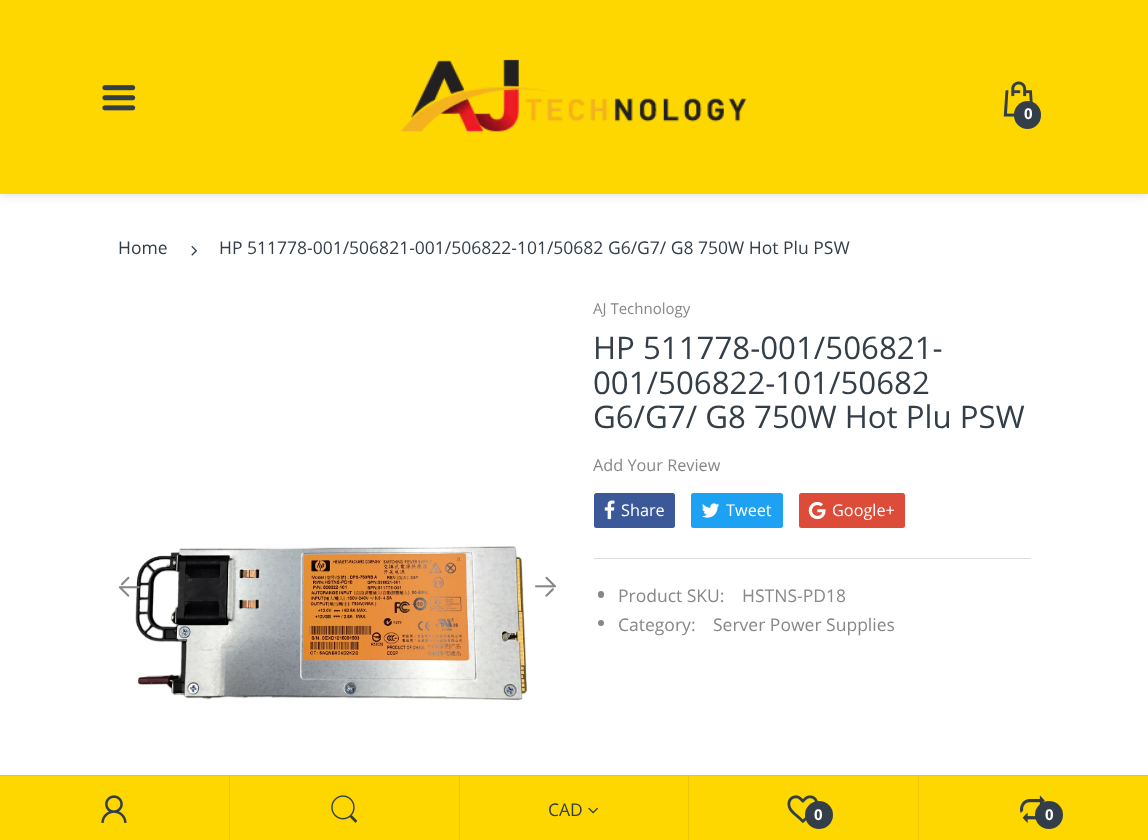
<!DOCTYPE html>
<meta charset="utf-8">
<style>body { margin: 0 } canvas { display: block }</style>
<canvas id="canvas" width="1148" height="840"></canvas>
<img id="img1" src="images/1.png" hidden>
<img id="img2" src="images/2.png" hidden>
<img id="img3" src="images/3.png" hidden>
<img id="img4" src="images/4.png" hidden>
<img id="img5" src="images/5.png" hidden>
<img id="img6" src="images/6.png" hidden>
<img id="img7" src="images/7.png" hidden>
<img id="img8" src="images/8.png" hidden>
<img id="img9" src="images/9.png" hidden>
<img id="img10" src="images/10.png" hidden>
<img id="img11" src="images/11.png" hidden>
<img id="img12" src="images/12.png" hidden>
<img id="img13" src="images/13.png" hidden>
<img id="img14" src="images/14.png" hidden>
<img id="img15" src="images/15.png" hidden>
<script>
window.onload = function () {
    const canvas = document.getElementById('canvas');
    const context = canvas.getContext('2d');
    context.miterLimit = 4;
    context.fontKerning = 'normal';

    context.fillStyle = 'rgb(255, 255, 255)';
    context.fillRect(0, 0, 1148, 840);
    context.fillStyle = 'rgba(201, 201, 201, 0.75)';
    context.filter = 'blur(5px)';
    context.beginPath();
    context.rect(0, 0, 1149, 194);
    context.fill();
    context.filter = 'none';
    context.fillStyle = 'rgb(254, 215, 0)';
    context.fillRect(0, 0, 1148, 194);
    context.drawImage(document.getElementById('img1'), 102, 85, 34, 26);
    context.drawImage(document.getElementById('img2'), 401, 59, 346, 73);
    context.drawImage(document.getElementById('img3'), 1003, 81, 30, 36);
    context.fillStyle = 'rgb(51, 62, 72)';
    context.beginPath();
    context.roundRect(1014, 101, 27, 28, 13.5);
    context.fill();
    context.drawImage(document.getElementById('img4'), 191, 245, 6, 11);
    context.drawImage(document.getElementById('img5'), 135, 546, 394, 155);
    context.drawImage(document.getElementById('img6'), 118, 576, 22, 21);
    context.drawImage(document.getElementById('img7'), 535, 576, 21, 21);
    context.fillStyle = 'rgb(221, 221, 221)';
    context.fillRect(594, 558, 437, 1);
    context.fillStyle = 'rgb(59, 89, 152)';
    context.beginPath();
    context.roundRect(594, 493, 81, 35, 2.5);
    context.fill();
    context.drawImage(document.getElementById('img8'), 604, 500, 11, 20);
    context.fillStyle = 'rgb(29, 161, 242)';
    context.beginPath();
    context.roundRect(691, 493, 92, 35, 2.5);
    context.fill();
    context.drawImage(document.getElementById('img9'), 701, 503, 19, 15);
    context.fillStyle = 'rgb(221, 75, 57)';
    context.beginPath();
    context.roundRect(799, 493, 106, 35, 2.5);
    context.fill();
    context.drawImage(document.getElementById('img10'), 808, 501, 18, 19);
    context.fillStyle = 'rgb(135, 135, 135)';
    context.beginPath();
    context.roundRect(598, 591, 6, 7, 3);
    context.fill();
    context.beginPath();
    context.arc(601, 623, 3, 0, 2 * Math.PI);
    context.fill();
    context.fillStyle = 'rgb(254, 215, 0)';
    context.fillRect(0, 776, 1148, 64);
    context.fillStyle = 'rgb(234, 200, 7)';
    context.fillRect(0, 775, 1148, 1);
    context.fillRect(229, 776, 1, 64);
    context.drawImage(document.getElementById('img11'), 101, 795, 26, 28);
    context.fillRect(459, 776, 1, 64);
    context.drawImage(document.getElementById('img12'), 331, 795, 27, 28);
    context.fillRect(688, 776, 1, 64);
    context.drawImage(document.getElementById('img13'), 588, 807, 10, 7);
    context.fillRect(918, 776, 1, 64);
    context.drawImage(document.getElementById('img14'), 787, 795, 31, 28);
    context.fillStyle = 'rgb(51, 62, 72)';
    context.beginPath();
    context.arc(819, 815, 14, 0, 2 * Math.PI);
    context.fill();
    context.drawImage(document.getElementById('img15'), 1020, 795, 25, 28);
    context.beginPath();
    context.arc(1049, 815, 14, 0, 2 * Math.PI);
    context.fill();
    context.font = 'bold 15px Open Sans';
    context.fillStyle = 'rgb(255, 255, 255)';
    context.fillText('0', 1024, 119);
    context.font = '17.5px Open Sans';
    context.fillStyle = 'rgb(51, 62, 72)';
    context.fillText('Home', 118, 254);
    context.fillText('HP 511778-001/506821-001/506822-101/50682 G6/G7/ G8 750W Hot Plu PSW', 219, 254);
    context.font = '15px Open Sans';
    context.fillStyle = 'rgb(135, 135, 135)';
    context.fillText('AJ Technology', 593, 314);
    context.font = '31.25px Open Sans';
    context.fillStyle = 'rgb(51, 62, 72)';
    context.fillText('HP 511778-001/506821-', 593, 359);
    context.fillText('001/506822-101/50682', 593, 394);
    context.fillText('G6/G7/ G8 750W Hot Plu PSW', 593, 428);
    context.font = '16.25px Open Sans';
    context.fillStyle = 'rgb(135, 135, 135)';
    context.fillText('Add Your Review', 593, 471);
    context.fillStyle = 'rgb(255, 255, 255)';
    context.fillText('Share', 621, 516);
    context.fillText('Tweet', 726, 516);
    context.fillText('Google+', 832, 516);
    context.font = '17.5px Open Sans';
    context.fillStyle = 'rgb(135, 135, 135)';
    context.fillText('Product SKU:', 618, 602);
    context.fillText('HSTNS-PD18', 742, 602);
    context.fillText('Category:', 618, 631);
    context.fillText('Server Power Supplies', 713, 631);
    context.fillStyle = 'rgb(51, 62, 72)';
    context.fillText('CAD', 548, 816);
    context.font = 'bold 15px Open Sans';
    context.fillStyle = 'rgb(255, 255, 255)';
    context.fillText('0', 814, 820);
    context.fillText('0', 1045, 820);
};
</script>
